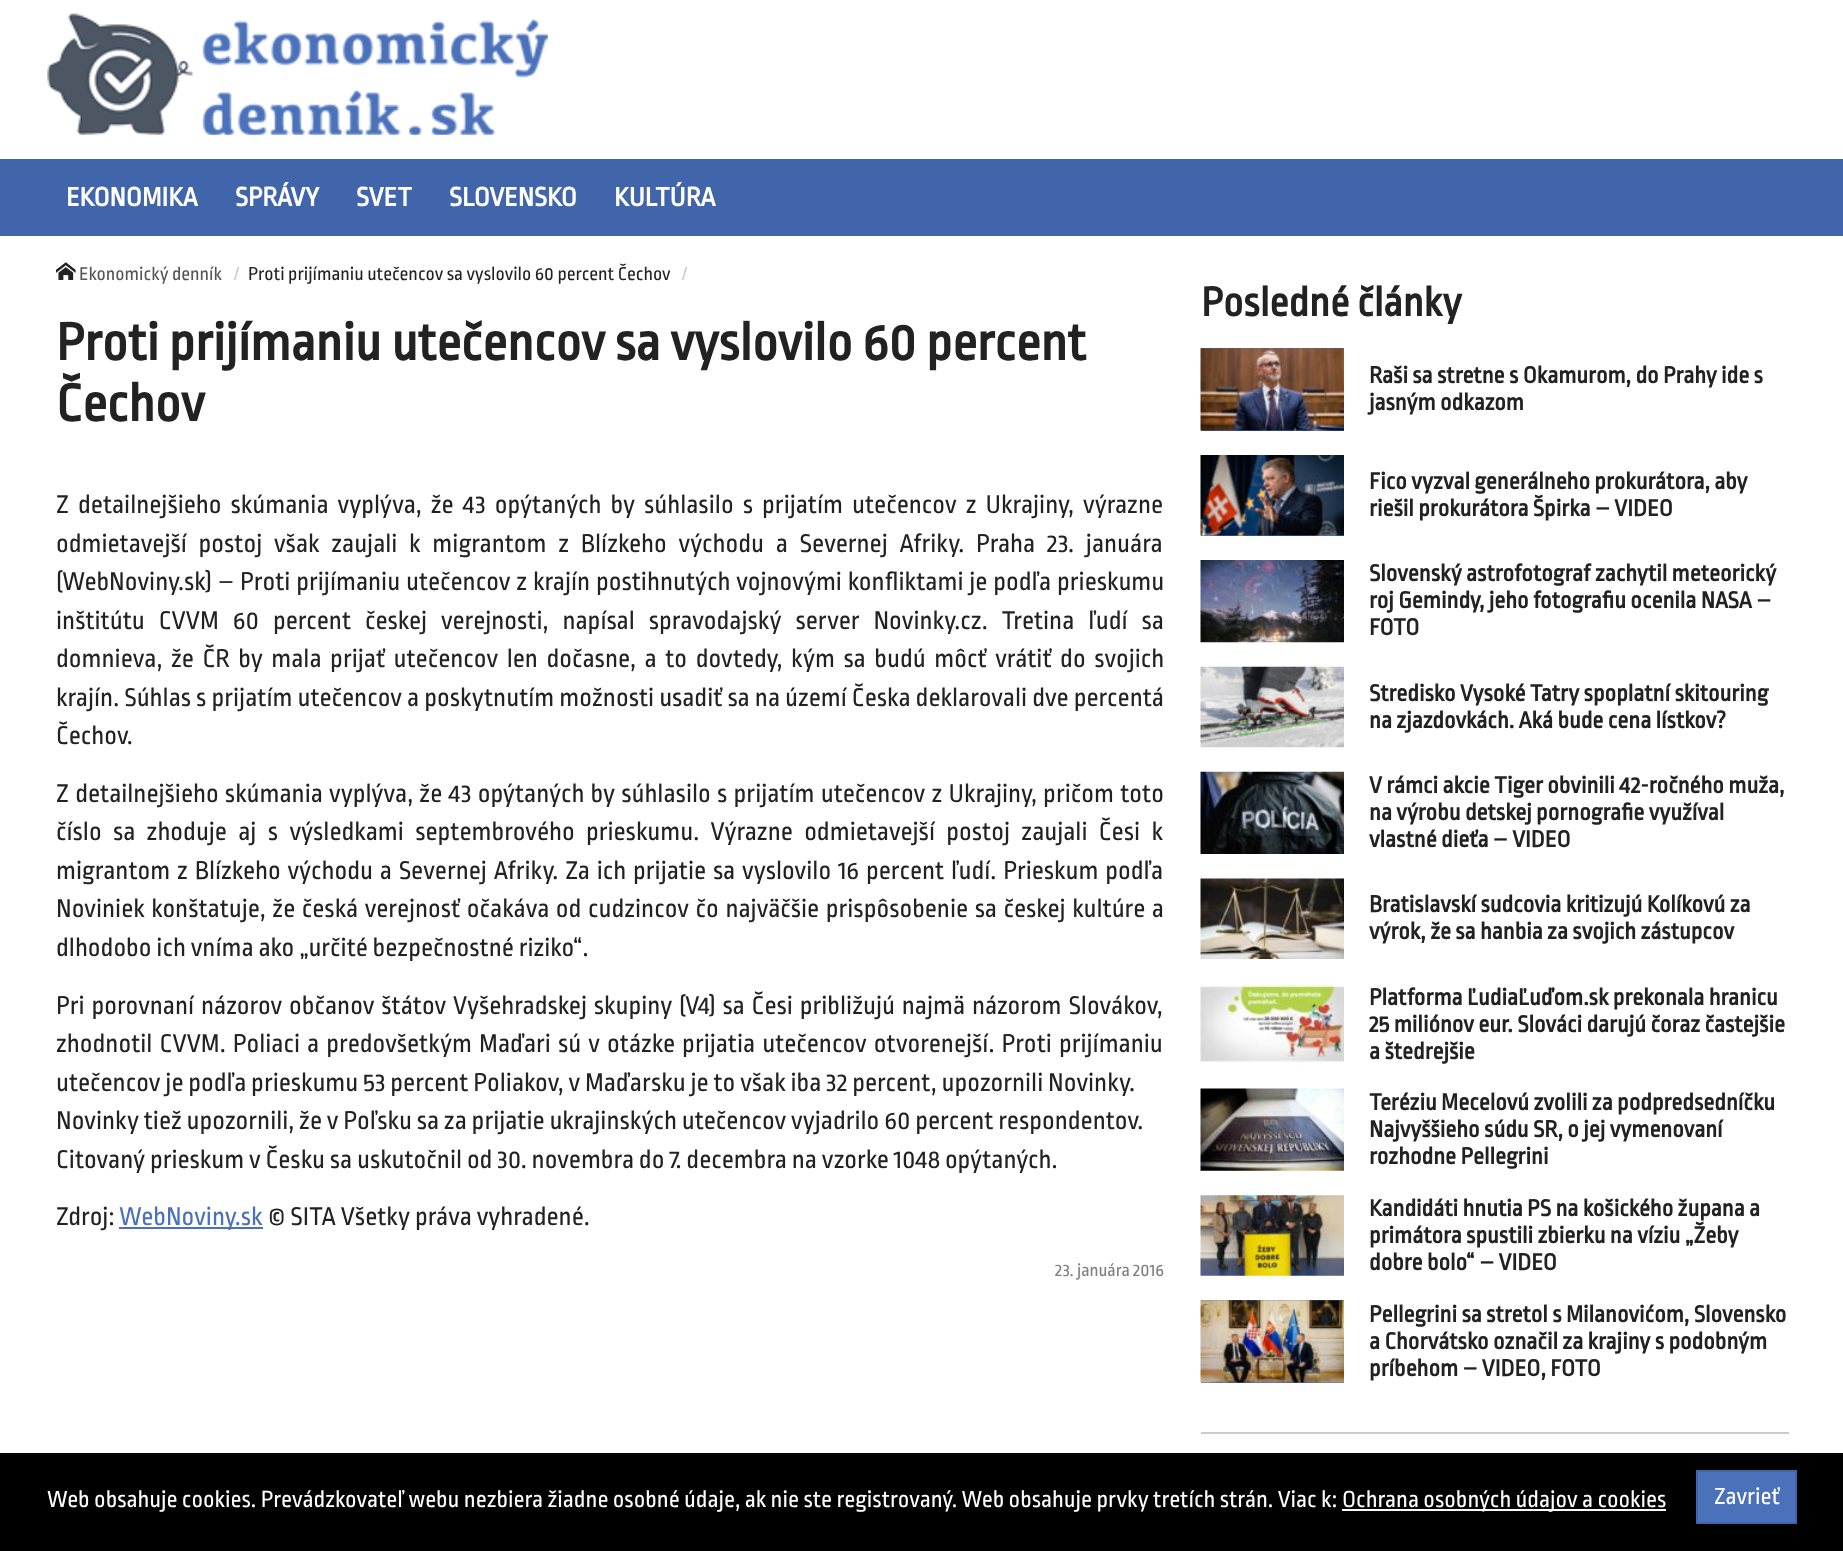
<!DOCTYPE html>
<meta charset="utf-8">
<style>body { margin: 0 } canvas { display: block }</style>
<canvas id="canvas" width="1843" height="1551"></canvas>
<img id="img1" src="images/1.png" hidden>
<img id="img2" src="images/2.png" hidden>
<img id="img3" src="images/3.png" hidden>
<img id="img4" src="images/4.png" hidden>
<img id="img5" src="images/5.png" hidden>
<img id="img6" src="images/6.png" hidden>
<img id="img7" src="images/7.png" hidden>
<img id="img8" src="images/8.png" hidden>
<img id="img9" src="images/9.png" hidden>
<img id="img10" src="images/10.png" hidden>
<img id="img11" src="images/11.png" hidden>
<img id="img12" src="images/12.png" hidden>
<script>
window.onload = function () {
    const canvas = document.getElementById('canvas');
    const context = canvas.getContext('2d');
    context.miterLimit = 4;
    context.fontKerning = 'normal';

    context.fillStyle = 'rgb(255, 255, 255)';
    context.fillRect(0, 0, 1843, 1551);
    context.drawImage(document.getElementById('img1'), 47, 12, 501, 123);
    context.fillStyle = 'rgb(65, 101, 170)';
    context.fillRect(0, 159, 1843, 77);
    context.drawImage(document.getElementById('img2'), 56, 262, 20, 18);
    context.fillStyle = 'rgb(74, 113, 186)';
    context.fillRect(119, 1227, 144, 2);
    context.fillStyle = 'rgb(204, 204, 204)';
    context.fillRect(1201, 1432, 588, 2);
    context.fillStyle = 'rgb(74, 113, 186)';
    context.fillRect(1201, 348, 143, 83);
    context.drawImage(document.getElementById('img3'), 1200, 348, 144, 83);
    context.fillRect(1201, 535, 143, 1);
    context.drawImage(document.getElementById('img4'), 1200, 455, 144, 81);
    context.drawImage(document.getElementById('img5'), 1200, 560, 144, 83);
    context.drawImage(document.getElementById('img6'), 1200, 666, 144, 82);
    context.drawImage(document.getElementById('img7'), 1200, 771, 144, 83);
    context.drawImage(document.getElementById('img8'), 1200, 878, 144, 81);
    context.drawImage(document.getElementById('img9'), 1200, 983, 144, 81);
    context.drawImage(document.getElementById('img10'), 1200, 1088, 144, 83);
    context.drawImage(document.getElementById('img11'), 1200, 1195, 144, 81);
    context.fillRect(1201, 1300, 143, 83);
    context.drawImage(document.getElementById('img12'), 1200, 1300, 144, 83);
    context.fillStyle = 'rgb(0, 0, 0)';
    context.fillRect(0, 1453, 1843, 98);
    context.fillStyle = 'rgb(255, 255, 255)';
    context.fillRect(1342, 1509, 324, 2);
    context.fillStyle = 'rgb(74, 113, 186)';
    context.beginPath();
    context.rect(1697, 1471, 99, 52);
    context.fill();
    context.strokeStyle = 'rgb(65, 101, 170)';
    context.lineWidth = 2;
    context.stroke();
    context.font = 'bold 28px Ropa Sans';
    context.fillStyle = 'rgb(255, 255, 255)';
    context.fillText('EKONOMIKA', 66, 206);
    context.fillText('SPRÁVY', 235, 206);
    context.fillText('SVET', 356, 206);
    context.fillText('SLOVENSKO', 449, 206);
    context.fillText('KULTÚRA', 614, 206);
    context.font = '19.6px Ropa Sans';
    context.fillStyle = 'rgb(85, 85, 85)';
    context.fillText('Ekonomický denník', 79, 280);
    context.fillStyle = 'rgb(204, 204, 204)';
    context.fillText('/', 234, 280);
    context.fillStyle = 'rgb(34, 34, 34)';
    context.fillText('Proti prijímaniu utečencov sa vyslovilo 60 percent Čechov', 248, 280);
    context.fillStyle = 'rgb(204, 204, 204)';
    context.fillText('/', 682, 280);
    context.font = 'bold 55.1px Ropa Sans';
    context.fillStyle = 'rgb(34, 34, 34)';
    context.fillText('Proti prijímaniu utečencov sa vyslovilo 60 percent', 56, 360);
    context.fillText('Čechov', 56, 421);
    context.wordSpacing = '4.25px';
    context.font = '26.95px Ropa Sans';
    context.fillText('Z detailnejšieho skúmania vyplýva, že 43 opýtaných by súhlasilo s prijatím utečencov z Ukrajiny, výrazne', 56, 513);
    context.wordSpacing = '6.9px';
    context.fillText('odmietavejší postoj však zaujali k migrantom z Blízkeho východu a Severnej Afriky. Praha 23. januára', 56, 552);
    context.wordSpacing = '1px';
    context.fillText('(WebNoviny.sk) – Proti prijímaniu utečencov z krajín postihnutých vojnovými konfliktami je podľa prieskumu', 56, 590);
    context.wordSpacing = '9.1px';
    context.fillText('inštitútu CVVM 60 percent českej verejnosti, napísal spravodajský server Novinky.cz. Tretina ľudí sa', 56, 629);
    context.wordSpacing = '3.75px';
    context.fillText('domnieva, že ČR by mala prijať utečencov len dočasne, a to dovtedy, kým sa budú môcť vrátiť do svojich', 56, 667);
    context.wordSpacing = '0.25px';
    context.fillText('krajín. Súhlas s prijatím utečencov a poskytnutím možnosti usadiť sa na území Česka deklarovali dve percentá', 56, 706);
    context.wordSpacing = '0px';
    context.fillText('Čechov.', 56, 744);
    context.wordSpacing = '1.4px';
    context.fillText('Z detailnejšieho skúmania vyplýva, že 43 opýtaných by súhlasilo s prijatím utečencov z Ukrajiny, pričom toto', 56, 802);
    context.wordSpacing = '6.5px';
    context.fillText('číslo sa zhoduje aj s výsledkami septembrového prieskumu. Výrazne odmietavejší postoj zaujali Česi k', 56, 840);
    context.wordSpacing = '2px';
    context.fillText('migrantom z Blízkeho východu a Severnej Afriky. Za ich prijatie sa vyslovilo 16 percent ľudí. Prieskum podľa', 56, 879);
    context.wordSpacing = '1.75px';
    context.fillText('Noviniek konštatuje, že česká verejnosť očakáva od cudzincov čo najväčšie prispôsobenie sa českej kultúre a', 56, 917);
    context.wordSpacing = '0px';
    context.fillText('dlhodobo ich vníma ako „určité bezpečnostné riziko“.', 56, 956);
    context.wordSpacing = '2px';
    context.fillText('Pri porovnaní názorov občanov štátov Vyšehradskej skupiny (V4) sa Česi približujú najmä názorom Slovákov,', 56, 1014);
    context.wordSpacing = '2.25px';
    context.fillText('zhodnotil CVVM. Poliaci a predovšetkým Maďari sú v otázke prijatia utečencov otvorenejší. Proti prijímaniu', 56, 1052);
    context.wordSpacing = '0px';
    context.fillText('utečencov je podľa prieskumu 53 percent Poliakov, v Maďarsku je to však iba 32 percent, upozornili Novinky.', 56, 1091);
    context.fillText('Novinky tiež upozornili, že v Poľsku sa za prijatie ukrajinských utečencov vyjadrilo 60 percent respondentov.', 56, 1129);
    context.fillText('Citovaný prieskum v Česku sa uskutočnil od 30. novembra do 7. decembra na vzorke 1048 opýtaných.', 56, 1168);
    context.fillText('Zdroj:', 56, 1225);
    context.fillStyle = 'rgb(74, 113, 186)';
    context.fillText('WebNoviny.sk', 119, 1225);
    context.fillStyle = 'rgb(34, 34, 34)';
    context.fillText('© SITA Všetky práva vyhradené.', 268, 1225);
    context.font = '18.5px Ropa Sans';
    context.fillStyle = 'rgb(128, 128, 128)';
    context.fillText('23. januára 2016', 1055, 1276);
    context.font = 'bold 43px Ropa Sans';
    context.fillStyle = 'rgb(34, 34, 34)';
    context.fillText('Posledné články', 1201, 316);
    context.font = 'bold 24.5px Ropa Sans';
    context.fillText('Raši sa stretne s Okamurom, do Prahy ide s', 1369, 383);
    context.fillText('jasným odkazom', 1369, 410);
    context.fillText('Fico vyzval generálneho prokurátora, aby', 1369, 489);
    context.fillText('riešil prokurátora Špirka – VIDEO', 1369, 516);
    context.fillText('Slovenský astrofotograf zachytil meteorický', 1369, 581);
    context.fillText('roj Gemindy, jeho fotografiu ocenila NASA –', 1369, 608);
    context.fillText('FOTO', 1369, 635);
    context.fillText('Stredisko Vysoké Tatry spoplatní skitouring', 1369, 701);
    context.fillText('na zjazdovkách. Aká bude cena lístkov?', 1369, 728);
    context.fillText('V rámci akcie Tiger obvinili 42-ročného muža,', 1369, 793);
    context.fillText('na výrobu detskej pornografie využíval', 1369, 820);
    context.fillText('vlastné dieťa – VIDEO', 1369, 847);
    context.fillText('Bratislavskí sudcovia kritizujú Kolíkovú za', 1369, 912);
    context.fillText('výrok, že sa hanbia za svojich zástupcov', 1369, 939);
    context.fillText('Platforma ĽudiaĽuďom.sk prekonala hranicu', 1369, 1005);
    context.fillText('25 miliónov eur. Slováci darujú čoraz častejšie', 1369, 1032);
    context.fillText('a štedrejšie', 1369, 1059);
    context.fillText('Teréziu Mecelovú zvolili za podpredsedníčku', 1369, 1110);
    context.fillText('Najvyššieho súdu SR, o jej vymenovaní', 1369, 1137);
    context.fillText('rozhodne Pellegrini', 1369, 1164);
    context.fillText('Kandidáti hnutia PS na košického župana a', 1369, 1216);
    context.fillText('primátora spustili zbierku na víziu „Žeby', 1369, 1243);
    context.fillText('dobre bolo“ – VIDEO', 1369, 1270);
    context.fillText('Pellegrini sa stretol s Milanovićom, Slovensko', 1369, 1322);
    context.fillText('a Chorvátsko označil za krajiny s podobným', 1369, 1349);
    context.fillText('príbehom – VIDEO, FOTO', 1369, 1376);
    context.font = '24.5px Ropa Sans';
    context.fillStyle = 'rgb(255, 255, 255)';
    context.fillText('Web obsahuje cookies. Prevádzkovateľ webu nezbiera žiadne osobné údaje, ak nie ste registrovaný. Web obsahuje prvky tretích strán. Viac k:', 47, 1507);
    context.fillText('Ochrana osobných údajov a cookies', 1342, 1507);
    context.fillText('Zavrieť', 1714, 1504);
};
</script>
